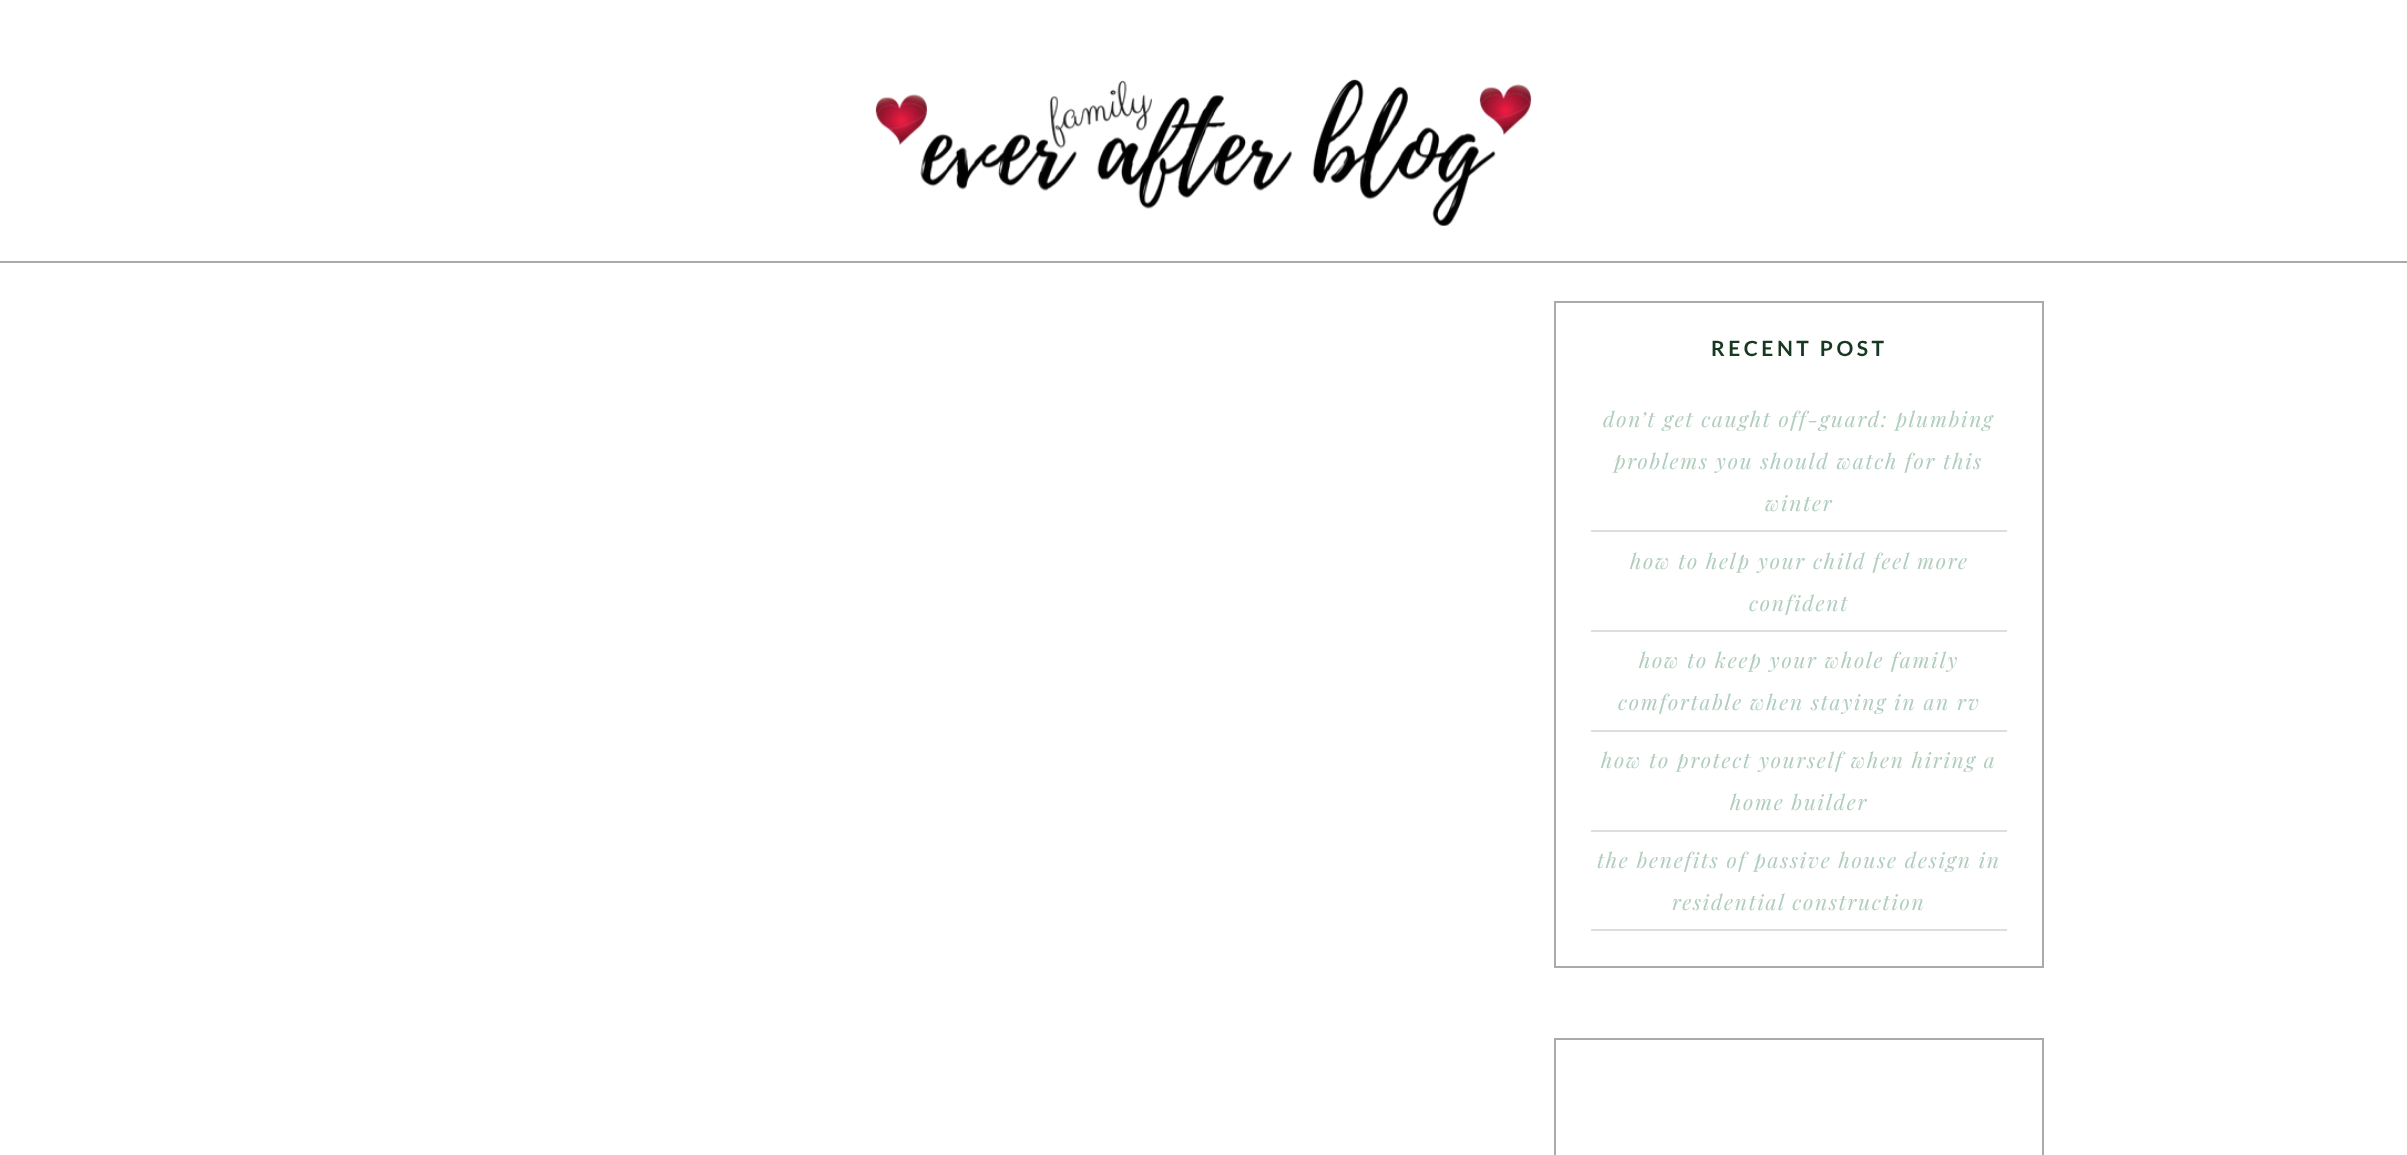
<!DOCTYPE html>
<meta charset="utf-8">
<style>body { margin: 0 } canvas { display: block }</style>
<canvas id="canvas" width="2407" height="1155"></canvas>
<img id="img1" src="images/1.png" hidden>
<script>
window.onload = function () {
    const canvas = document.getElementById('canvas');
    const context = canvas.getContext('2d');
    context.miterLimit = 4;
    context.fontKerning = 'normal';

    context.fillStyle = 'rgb(255, 255, 255)';
    context.fillRect(0, 0, 2407, 1155);
    context.fillStyle = 'rgb(171, 169, 169)';
    context.fillRect(0, 261, 2407, 2);
    context.drawImage(document.getElementById('img1'), 875, 79, 657, 147);
    context.strokeStyle = 'rgb(171, 169, 169)';
    context.lineWidth = 2;
    context.strokeRect(1555, 302, 488, 665);
    context.fillStyle = 'rgb(221, 221, 221)';
    context.fillRect(1591, 530, 416, 2);
    context.fillRect(1591, 630, 416, 2);
    context.fillRect(1591, 730, 416, 2);
    context.fillRect(1591, 830, 416, 2);
    context.fillRect(1591, 929, 416, 2);
    context.strokeRect(1555, 1039, 488, 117);
    context.letterSpacing = '3.5px';
    context.font = 'bold 21px Lato';
    context.fillStyle = 'rgb(23, 56, 33)';
    context.fillText('RECENT POST', 1711, 356);
    context.letterSpacing = '1.75px';
    context.font = 'italic 21px Playfair Display';
    context.fillStyle = 'rgb(176, 205, 189)';
    context.fillText('don’t get caught off-guard: plumbing', 1603, 427);
    context.fillText('problems you should watch for this', 1614, 469);
    context.fillText('winter', 1765, 511);
    context.fillText('how to help your child feel more', 1630, 569);
    context.fillText('confident', 1749, 611);
    context.fillText('how to keep your whole family', 1639, 668);
    context.fillText('comfortable when staying in an rv', 1618, 710);
    context.fillText('how to protect yourself when hiring a', 1601, 768);
    context.fillText('home builder', 1730, 810);
    context.fillText('the benefits of passive house design in', 1597, 868);
    context.fillText('residential construction', 1672, 910);
};
</script>
